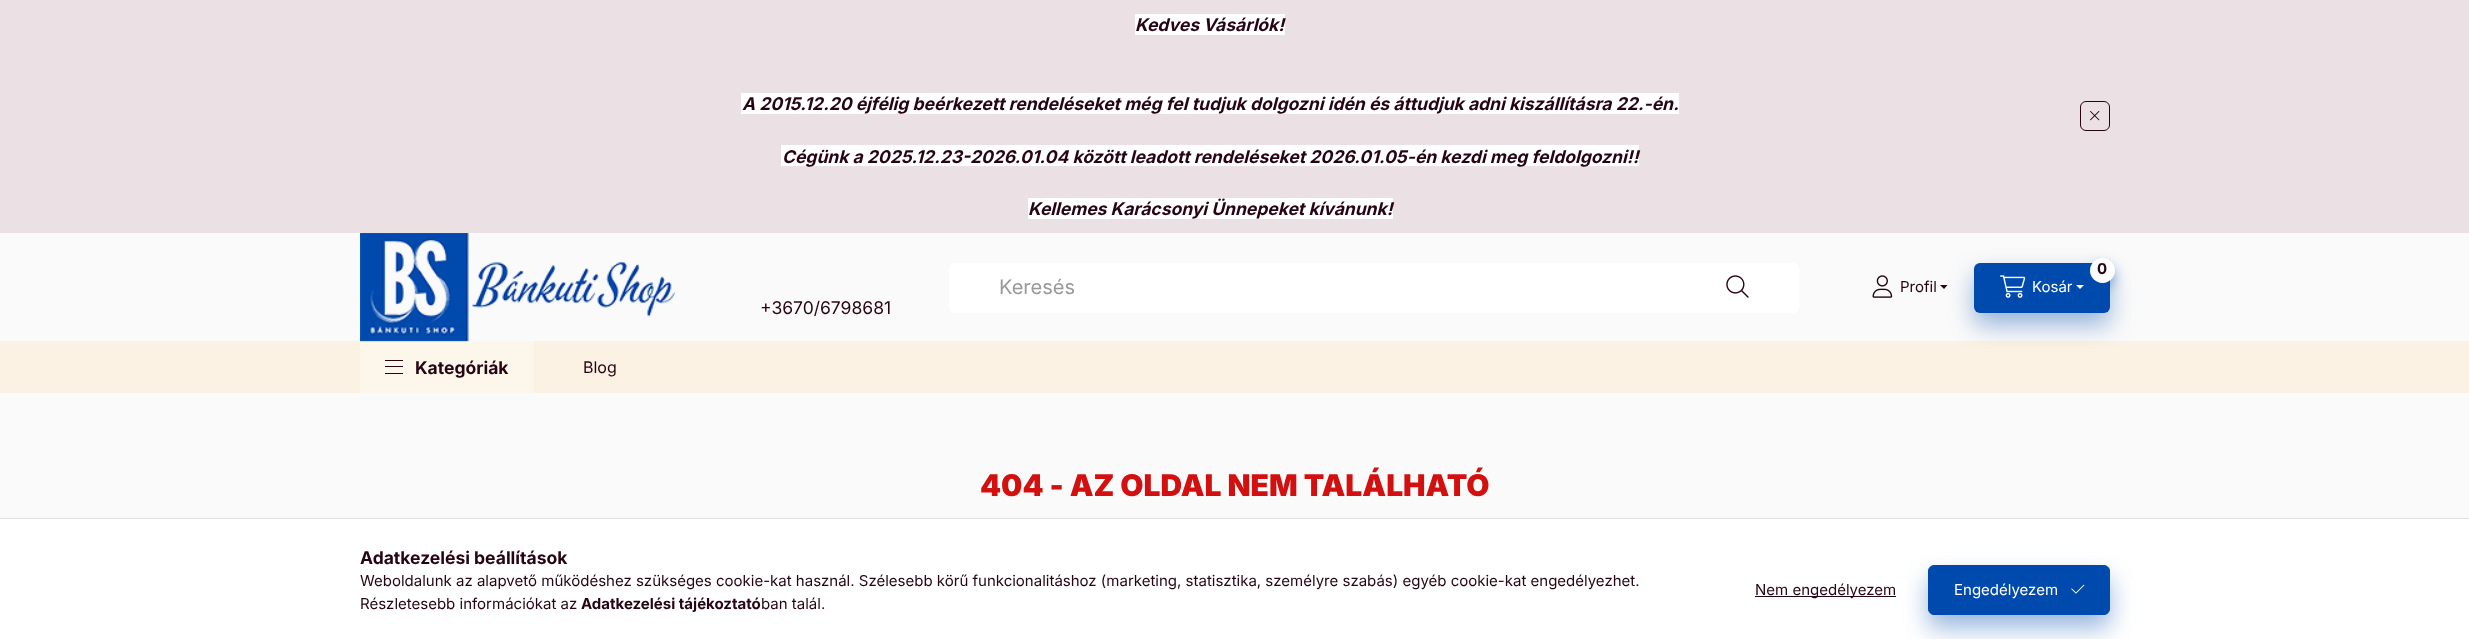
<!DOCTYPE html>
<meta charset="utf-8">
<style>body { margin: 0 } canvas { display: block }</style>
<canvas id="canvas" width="2469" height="639"></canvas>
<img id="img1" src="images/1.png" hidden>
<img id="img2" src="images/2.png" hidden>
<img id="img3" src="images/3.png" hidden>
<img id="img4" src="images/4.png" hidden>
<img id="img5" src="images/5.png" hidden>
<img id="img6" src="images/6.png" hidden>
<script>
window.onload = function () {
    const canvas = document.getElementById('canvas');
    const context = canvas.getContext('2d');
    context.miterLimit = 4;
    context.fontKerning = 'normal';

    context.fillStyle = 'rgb(250, 250, 250)';
    context.fillRect(0, 0, 2469, 639);
    context.fillStyle = 'rgb(235, 225, 229)';
    context.fillRect(0, 0, 2469, 233);
    context.fillStyle = 'rgb(255, 255, 255)';
    context.fillRect(1135, 14, 150, 21);
    context.fillRect(741, 93, 938, 21);
    context.fillRect(781, 145, 858, 21);
    context.fillRect(1028, 198, 365, 21);
    context.beginPath();
    context.roundRect(2080.5, 101.5, 29, 29, 5.5);
    context.strokeStyle = 'rgb(38, 4, 19)';
    context.stroke();
    context.drawImage(document.getElementById('img1'), 2090, 111, 10, 10);
    context.beginPath();
    context.roundRect(949, 263, 850, 50, 6);
    context.fill();
    context.drawImage(document.getElementById('img2'), 1726, 275, 23, 23);
    context.drawImage(document.getElementById('img3'), 1872, 275, 21, 23);
    context.fillStyle = 'rgb(252, 242, 227)';
    context.fillRect(0, 341, 2469, 52);
    context.fillStyle = 'rgba(0, 74, 173, 0.4)';
    context.filter = 'blur(12.5px)';
    context.beginPath();
    context.roundRect(1974, 275, 136, 50, 6);
    context.fill();
    context.filter = 'none';
    context.fillStyle = 'rgb(38, 4, 19)';
    context.beginPath();
    context.moveTo(1940, 285);
    context.lineTo(1947.5, 285);
    context.lineTo(1944, 289);
    context.closePath();
    context.fill();
    context.fillStyle = 'rgb(0, 74, 173)';
    context.beginPath();
    context.roundRect(1974, 263, 136, 50, 6);
    context.fill();
    context.fillStyle = 'rgba(0, 74, 173, 0.4)';
    context.filter = 'blur(6px)';
    context.beginPath();
    context.roundRect(2090, 264, 25, 25, 12.5);
    context.fill();
    context.filter = 'none';
    context.fillStyle = 'rgb(255, 255, 255)';
    context.beginPath();
    context.arc(2102.5, 270.5, 12.5, 0, 2 * Math.PI);
    context.fill();
    context.drawImage(document.getElementById('img4'), 2000, 275, 26, 23);
    context.beginPath();
    context.moveTo(2076, 285);
    context.lineTo(2084, 285);
    context.lineTo(2080, 289);
    context.closePath();
    context.fill();
    context.drawImage(document.getElementById('img5'), 360, 233, 316, 109);
    context.fillStyle = 'rgba(255, 255, 255, 0.3)';
    context.fillRect(360, 341, 174, 52);
    context.fillStyle = 'rgb(38, 4, 19)';
    context.fillRect(385, 360, 18, 1);
    context.fillRect(385, 366, 18, 1);
    context.fillRect(385, 373, 18, 1);
    context.fillStyle = 'rgb(255, 255, 255)';
    context.fillRect(0, 519, 2469, 120);
    context.fillStyle = 'rgb(225, 225, 225)';
    context.fillRect(0, 518, 2469, 1);
    context.fillStyle = 'rgb(38, 4, 19)';
    context.fillRect(1755, 596, 141, 1);
    context.fillStyle = 'rgba(0, 74, 173, 0.4)';
    context.filter = 'blur(12.5px)';
    context.beginPath();
    context.roundRect(1928, 578, 182, 50, 6);
    context.fill();
    context.filter = 'none';
    context.fillStyle = 'rgb(0, 74, 173)';
    context.beginPath();
    context.roundRect(1928.5, 565.5, 181, 49, 5.5);
    context.fill();
    context.strokeStyle = 'rgb(0, 74, 173)';
    context.stroke();
    context.drawImage(document.getElementById('img6'), 2071, 584, 14, 10);
    context.font = 'italic bold 17.5px Inter';
    context.fillStyle = 'rgb(38, 4, 19)';
    context.fillText('Kedves Vásárlók!', 1135, 31);
    context.fillText('A 2015.12.20 éjfélig beérkezett rendeléseket még fel tudjuk dolgozni idén és áttudjuk adni kiszállításra 22.-én.', 742, 110);
    context.fillText('Cégünk a 2025.12.23-2026.01.04 között leadott rendeléseket 2026.01.05-én kezdi meg feldolgozni!!', 782, 163);
    context.fillText('Kellemes Karácsonyi Ünnepeket kívánunk!', 1028, 215);
    context.font = '20px Inter';
    context.fillStyle = 'rgb(153, 153, 153)';
    context.fillText('Keresés', 999, 294);
    context.font = '15px Inter';
    context.fillStyle = 'rgb(38, 4, 19)';
    context.fillText('Profil', 1900, 292);
    context.font = 'bold 15px Inter';
    context.fillText('0', 2097, 274);
    context.font = '15px Inter';
    context.fillStyle = 'rgb(255, 255, 255)';
    context.fillText('Kosár', 2032, 292);
    context.font = '17.5px Inter';
    context.fillStyle = 'rgb(38, 4, 19)';
    context.fillText('+3670/6798681', 760, 314);
    context.font = 'bold 17.5px Inter';
    context.fillText('Kategóriák', 415, 374);
    context.font = '16px Inter';
    context.fillText('Blog', 583, 373);
    context.font = '900 30px Inter';
    context.fillStyle = 'rgb(211, 16, 16)';
    context.fillText('404 - AZ OLDAL NEM TALÁLHATÓ', 980, 496);
    context.font = 'bold 17.5px Inter';
    context.fillStyle = 'rgb(38, 4, 19)';
    context.fillText('Adatkezelési beállítások', 360, 564);
    context.font = '15px Inter';
    context.fillText('Weboldalunk az alapvető működéshez szükséges cookie-kat használ. Szélesebb körű funkcionalitáshoz (marketing, statisztika, személyre szabás) egyéb cookie-kat engedélyezhet.', 360, 586);
    context.fillText('Részletesebb információkat az', 360, 609);
    context.font = 'bold 15px Inter';
    context.fillText('Adatkezelési tájékoztató', 581, 609);
    context.font = '15px Inter';
    context.fillText('ban talál.', 761, 609);
    context.fillText('Nem engedélyezem', 1755, 595);
    context.fillStyle = 'rgb(255, 255, 255)';
    context.fillText('Engedélyezem', 1954, 595);
};
</script>
